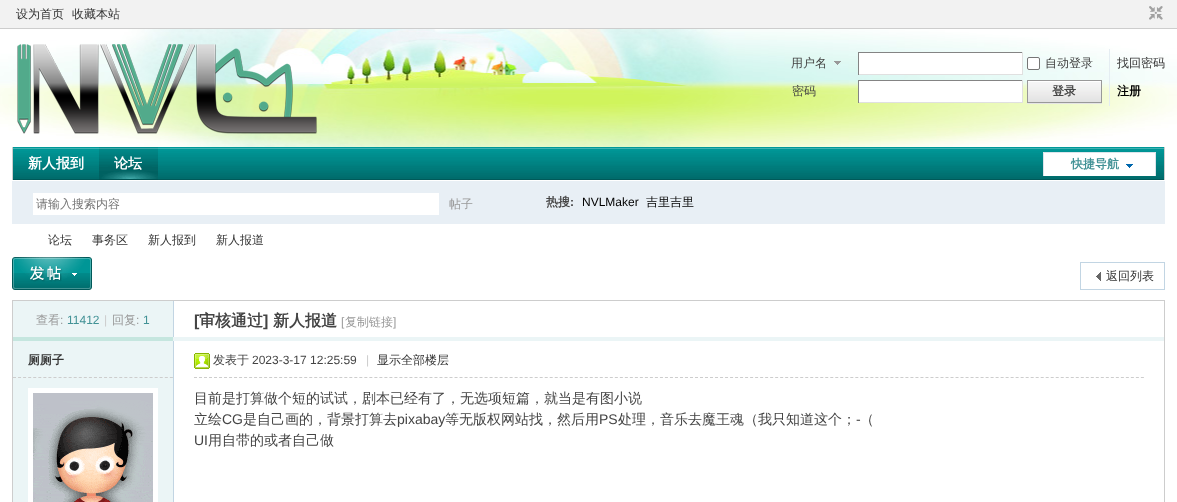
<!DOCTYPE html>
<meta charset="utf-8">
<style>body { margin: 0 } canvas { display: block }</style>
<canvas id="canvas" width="1177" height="502"></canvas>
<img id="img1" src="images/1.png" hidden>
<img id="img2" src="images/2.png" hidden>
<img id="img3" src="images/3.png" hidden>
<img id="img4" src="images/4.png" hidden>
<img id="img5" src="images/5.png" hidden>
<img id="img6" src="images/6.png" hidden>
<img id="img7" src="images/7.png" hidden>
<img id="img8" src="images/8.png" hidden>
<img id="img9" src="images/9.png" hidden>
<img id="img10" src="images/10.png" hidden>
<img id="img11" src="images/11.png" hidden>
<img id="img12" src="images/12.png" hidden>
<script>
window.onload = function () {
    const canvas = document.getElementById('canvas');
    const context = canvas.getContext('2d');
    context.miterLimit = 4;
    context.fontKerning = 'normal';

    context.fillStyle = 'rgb(255, 255, 255)';
    context.fillRect(0, 0, 1177, 502);
    context.drawImage(document.getElementById('img1'), 0, 29, 1177, 147);
    context.fillStyle = 'rgb(242, 242, 242)';
    context.fillRect(0, 0, 1177, 28);
    context.fillStyle = 'rgb(205, 205, 205)';
    context.fillRect(0, 28, 1177, 1);
    context.drawImage(document.getElementById('img2'), 1149, 6, 14, 14);
    context.drawImage(document.getElementById('img3'), 17, 44, 300, 90);
    context.drawImage(document.getElementById('img4'), 834, 61, 7, 4);
    context.fillStyle = 'rgb(255, 255, 255)';
    context.fillRect(859, 53, 163, 21);
    context.fillStyle = 'rgb(132, 132, 132)';
    context.fillRect(858, 52, 165, 1);
    context.fillStyle = 'rgb(224, 224, 224)';
    context.fillRect(1022, 52, 1, 23);
    context.fillRect(858, 74, 165, 1);
    context.fillStyle = 'rgb(132, 132, 132)';
    context.fillRect(858, 52, 1, 23);
    context.fillStyle = 'rgb(255, 255, 255)';
    context.beginPath();
    context.roundRect(1027.5, 57.5, 12, 12, 1.5);
    context.fill();
    context.strokeStyle = 'rgb(118, 118, 118)';
    context.stroke();
    context.fillRect(859, 81, 163, 21);
    context.fillStyle = 'rgb(132, 132, 132)';
    context.fillRect(858, 80, 165, 1);
    context.fillStyle = 'rgb(224, 224, 224)';
    context.fillRect(1022, 80, 1, 23);
    context.fillRect(858, 102, 165, 1);
    context.fillStyle = 'rgb(132, 132, 132)';
    context.fillRect(858, 80, 1, 23);
    context.fillStyle = 'rgb(229, 237, 242)';
    context.fillRect(1109, 49, 1, 57);
    context.fillStyle = 'rgb(229, 229, 229)';
    context.fillRect(1027, 103, 75, 1);
    context.drawImage(document.getElementById('img5'), 1028, 81, 73, 21);
    context.strokeStyle = 'rgb(153, 153, 153)';
    context.strokeRect(1027.5, 80.5, 74, 22);
    context.drawImage(document.getElementById('img6'), 13, 147, 1151, 33);
    context.fillStyle = 'rgb(205, 205, 205)';
    context.fillRect(1164, 147, 1, 33);
    context.fillRect(12, 147, 1, 33);
    context.drawImage(document.getElementById('img7'), 99, 147, 59, 33);
    context.drawImage(document.getElementById('img8'), 1043, 152, 113, 24);
    context.fillStyle = 'rgb(232, 239, 245)';
    context.fillRect(12, 181, 1153, 43);
    context.fillStyle = 'rgb(255, 255, 255)';
    context.fillRect(33, 193, 406, 22);
    context.drawImage(document.getElementById('img9'), 12, 257, 80, 33);
    context.drawImage(document.getElementById('img10'), 1096, 272, 5, 9);
    context.strokeStyle = 'rgb(194, 213, 227)';
    context.strokeRect(1080.5, 262.5, 84, 27);
    context.strokeStyle = 'rgb(205, 205, 205)';
    context.strokeRect(12.5, 300.5, 1152, 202);
    context.fillStyle = 'rgb(194, 213, 227)';
    context.fillRect(173, 301, 1, 37);
    context.fillStyle = 'rgb(235, 245, 246)';
    context.fillRect(13, 301, 160, 36);
    context.fillStyle = 'rgb(197, 230, 223)';
    context.fillRect(13, 337, 160, 4);
    context.fillStyle = 'rgb(235, 245, 246)';
    context.fillRect(173, 337, 991, 4);
    context.fillStyle = 'rgb(194, 213, 227)';
    context.fillRect(173, 341, 1, 161);
    context.fillStyle = 'rgb(235, 245, 246)';
    context.fillRect(13, 341, 160, 161);
    context.beginPath();
    context.moveTo(13, 377.5);
    context.lineTo(173, 377.5);
    context.setLineDash([3, 2.06]);
    context.stroke();
    context.fillStyle = 'rgb(255, 255, 255)';
    context.fillRect(28, 388, 130, 114);
    context.drawImage(document.getElementById('img11'), 33, 393, 120, 109);
    context.beginPath();
    context.moveTo(194, 377.5);
    context.lineTo(1144, 377.5);
    context.setLineDash([3, 2.01]);
    context.stroke();
    context.drawImage(document.getElementById('img12'), 194, 353, 16, 16);
    context.font = '500 12px WenQuanYi Zen Hei';
    context.fillStyle = 'rgb(51, 51, 51)';
    context.fillText('设为首页', 16, 18);
    context.fillText('收藏本站', 72, 18);
    context.fillStyle = 'rgb(68, 68, 68)';
    context.fillText('用户名', 791, 67);
    context.fillText('自动登录', 1045, 67);
    context.fillStyle = 'rgb(51, 51, 51)';
    context.fillText('找回密码', 1117, 67);
    context.fillStyle = 'rgb(68, 68, 68)';
    context.fillText('密码', 792, 95);
    context.font = 'bold 12px WenQuanYi Zen Hei';
    context.fillText('登录', 1052, 95);
    context.fillStyle = 'rgb(0, 0, 0)';
    context.fillText('注册', 1117, 95);
    context.font = 'bold 14px WenQuanYi Zen Hei';
    context.fillStyle = 'rgb(255, 255, 255)';
    context.fillText('新人报到', 28, 168);
    context.fillText('论坛', 114, 168);
    context.font = 'bold 12px WenQuanYi Zen Hei';
    context.fillStyle = 'rgb(66, 146, 150)';
    context.fillText('快捷导航', 1071, 168);
    context.font = '500 12px WenQuanYi Zen Hei';
    context.fillStyle = 'rgb(117, 117, 117)';
    context.fillText('请输入搜索内容', 36, 208);
    context.fillStyle = 'rgb(153, 153, 153)';
    context.fillText('帖子', 449, 208);
    context.font = 'bold 12px WenQuanYi Zen Hei';
    context.fillStyle = 'rgb(68, 68, 68)';
    context.fillText('热搜', 546, 206);
    context.font = 'bold 12px Liberation Sans';
    context.fillText(':', 570, 206);
    context.font = '12px Liberation Sans';
    context.fillStyle = 'rgb(0, 0, 0)';
    context.fillText('NVLMaker', 582, 206);
    context.font = '500 12px WenQuanYi Zen Hei';
    context.fillText('吉里吉里', 646, 206);
    context.fillStyle = 'rgb(51, 51, 51)';
    context.fillText('论坛', 48, 244);
    context.fillText('事务区', 92, 244);
    context.fillText('新人报到', 148, 244);
    context.fillText('新人报道', 216, 244);
    context.fillText('返回列表', 1106, 280);
    context.fillStyle = 'rgb(153, 153, 153)';
    context.fillText('查看', 36, 324);
    context.font = '12px Liberation Sans';
    context.fillText(':', 60, 324);
    context.fillStyle = 'rgb(66, 146, 150)';
    context.fillText('11412', 67, 324);
    context.fillStyle = 'rgb(204, 204, 204)';
    context.fillText('|', 104, 324);
    context.font = '500 12px WenQuanYi Zen Hei';
    context.fillStyle = 'rgb(153, 153, 153)';
    context.fillText('回复', 112, 324);
    context.font = '12px Liberation Sans';
    context.fillText(':', 136, 324);
    context.fillStyle = 'rgb(66, 146, 150)';
    context.fillText('1', 143, 324);
    context.font = 'bold 16px Liberation Sans';
    context.fillStyle = 'rgb(68, 68, 68)';
    context.fillText('[', 194, 326);
    context.font = 'bold 16px WenQuanYi Zen Hei';
    context.fillText('审核通过', 199, 326);
    context.font = 'bold 16px Liberation Sans';
    context.fillText(']', 263, 326);
    context.font = 'bold 16px WenQuanYi Zen Hei';
    context.fillText('新人报道', 273, 326);
    context.font = '12px Liberation Sans';
    context.fillStyle = 'rgb(153, 153, 153)';
    context.fillText('[', 341, 326);
    context.font = '500 12px WenQuanYi Zen Hei';
    context.fillText('复制链接', 345, 326);
    context.font = '12px Liberation Sans';
    context.fillText(']', 393, 326);
    context.font = 'bold 12px WenQuanYi Zen Hei';
    context.fillStyle = 'rgb(51, 51, 51)';
    context.fillText('厕厕子', 28, 364);
    context.font = '500 12px WenQuanYi Zen Hei';
    context.fillStyle = 'rgb(68, 68, 68)';
    context.fillText('发表于', 213, 364);
    context.font = '12px Liberation Sans';
    context.fillText('2023-3-17 12:25:59', 252, 364);
    context.fillStyle = 'rgb(204, 204, 204)';
    context.fillText('|', 366, 364);
    context.font = '500 12px WenQuanYi Zen Hei';
    context.fillStyle = 'rgb(51, 51, 51)';
    context.fillText('显示全部楼层', 377, 364);
    context.font = '500 14px WenQuanYi Zen Hei';
    context.fillStyle = 'rgb(68, 68, 68)';
    context.fillText('目前是打算做个短的试试，剧本已经有了，无选项短篇，就当是有图小说', 194, 403);
    context.fillText('立绘', 194, 424);
    context.font = '14px Liberation Sans';
    context.fillText('CG', 222, 424);
    context.font = '500 14px WenQuanYi Zen Hei';
    context.fillText('是自己画的，背景打算去', 243, 424);
    context.font = '14px Liberation Sans';
    context.fillText('pixabay', 397, 424);
    context.font = '500 14px WenQuanYi Zen Hei';
    context.fillText('等无版权网站找，然后用', 445, 424);
    context.font = '14px Liberation Sans';
    context.fillText('PS', 599, 424);
    context.font = '500 14px WenQuanYi Zen Hei';
    context.fillText('处理，音乐去魔王魂（我只知道这个；', 618, 424);
    context.font = '14px Liberation Sans';
    context.fillText('-', 856, 424);
    context.font = '500 14px WenQuanYi Zen Hei';
    context.fillText('（', 860, 424);
    context.font = '14px Liberation Sans';
    context.fillText('UI', 194, 445);
    context.font = '500 14px WenQuanYi Zen Hei';
    context.fillText('用自带的或者自己做', 208, 445);
};
</script>
